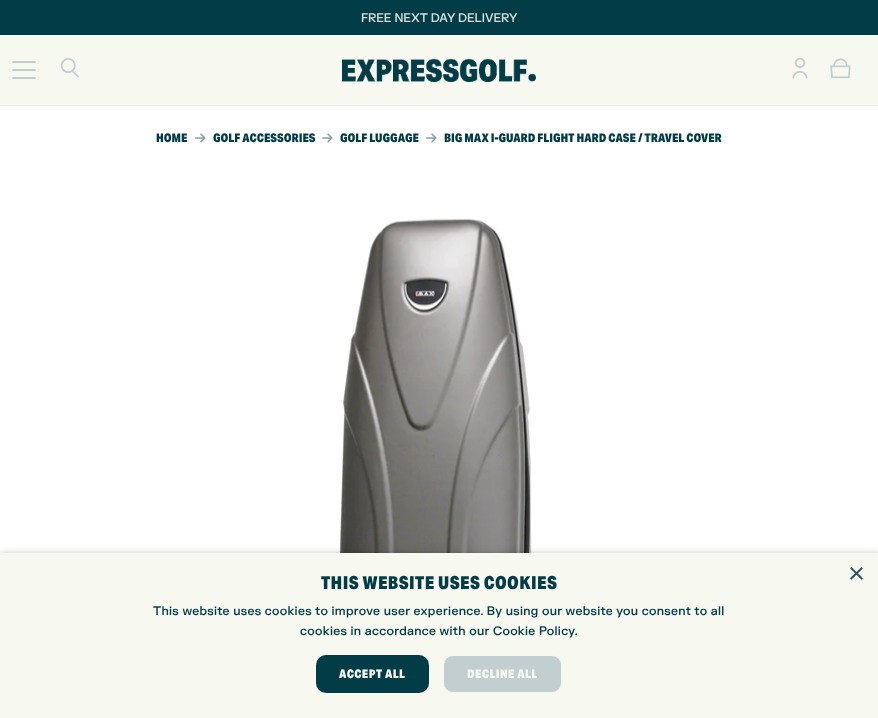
<!DOCTYPE html>
<meta charset="utf-8">
<style>body { margin: 0 } canvas { display: block }</style>
<canvas id="canvas" width="878" height="718"></canvas>
<img id="img1" src="images/1.png" hidden>
<img id="img2" src="images/2.png" hidden>
<img id="img3" src="images/3.png" hidden>
<img id="img4" src="images/4.png" hidden>
<img id="img5" src="images/5.png" hidden>
<img id="img6" src="images/6.png" hidden>
<script>
window.onload = function () {
    const canvas = document.getElementById('canvas');
    const context = canvas.getContext('2d');
    context.miterLimit = 4;
    context.fontKerning = 'normal';

    context.fillStyle = 'rgb(255, 255, 255)';
    context.fillRect(0, 0, 878, 718);
    context.fillStyle = 'rgb(2, 60, 70)';
    context.fillRect(0, 0, 878, 35);
    context.fillStyle = 'rgb(235, 235, 235)';
    context.fillRect(0, 105, 878, 1);
    context.fillStyle = 'rgb(247, 248, 240)';
    context.fillRect(0, 35, 878, 70);
    context.fillStyle = 'rgb(193, 206, 208)';
    context.beginPath();
    context.roundRect(12, 69, 24, 2, 1);
    context.fill();
    context.beginPath();
    context.roundRect(12, 61, 24, 2, 1);
    context.fill();
    context.beginPath();
    context.roundRect(12, 77, 24, 2, 1);
    context.fill();
    context.drawImage(document.getElementById('img1'), 60, 58, 19, 20);
    context.drawImage(document.getElementById('img2'), 342, 58, 194, 24);
    context.drawImage(document.getElementById('img3'), 792, 57, 16, 22);
    context.drawImage(document.getElementById('img4'), 830, 58, 21, 21);
    context.drawImage(document.getElementById('img5'), 195, 133, 11, 10);
    context.drawImage(document.getElementById('img5'), 322, 133, 11, 10);
    context.drawImage(document.getElementById('img5'), 426, 133, 11, 10);
    context.drawImage(document.getElementById('img6'), 333, 218, 202, 335);
    context.fillStyle = 'rgba(0, 0, 0, 0.35)';
    context.filter = 'blur(4px)';
    context.beginPath();
    context.rect(1, 555, 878, 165);
    context.fill();
    context.filter = 'none';
    context.fillStyle = 'rgb(247, 248, 240)';
    context.fillRect(0, 553, 878, 165);
    context.fillStyle = 'rgb(2, 60, 70)';
    context.beginPath();
    context.roundRect(316, 655, 113, 38, 10);
    context.fill();
    context.fillStyle = 'rgb(194, 206, 208)';
    context.beginPath();
    context.roundRect(443.5, 655.5, 118, 37, 9.5);
    context.fill();
    context.strokeStyle = 'rgb(247, 248, 240)';
    context.stroke();
    context.font = '500 12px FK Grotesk';
    context.fillStyle = 'rgb(211, 220, 215)';
    context.fillText('FREE NEXT DAY DELIVERY', 361, 22);
    context.font = '900 12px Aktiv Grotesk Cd';
    context.fillStyle = 'rgb(2, 60, 70)';
    context.fillText('HOME', 156, 142);
    context.fillText('GOLF ACCESSORIES', 213, 142);
    context.fillText('GOLF LUGGAGE', 340, 142);
    context.fillText('BIG MAX I-GUARD FLIGHT HARD CASE / TRAVEL COVER', 444, 142);
    context.font = '29px Liberation Sans';
    context.fillStyle = 'rgb(39, 88, 96)';
    context.fillText('×', 848, 583);
    context.letterSpacing = '0.4px';
    context.font = '900 18px Aktiv Grotesk Cd';
    context.fillStyle = 'rgb(2, 60, 70)';
    context.fillText('THIS WEBSITE USES COOKIES', 321, 589);
    context.letterSpacing = '0.3px';
    context.font = '500 12px FK Grotesk';
    context.fillText('This website uses cookies to improve user experience. By using our website you consent to all', 153, 615);
    context.fillText('cookies in accordance with our Cookie Policy.', 300, 635);
    context.letterSpacing = '0.4px';
    context.font = '900 12px Aktiv Grotesk Cd';
    context.fillStyle = 'rgb(247, 248, 240)';
    context.fillText('ACCEPT ALL', 339, 678);
    context.fillText('DECLINE ALL', 467, 678);
};
</script>
